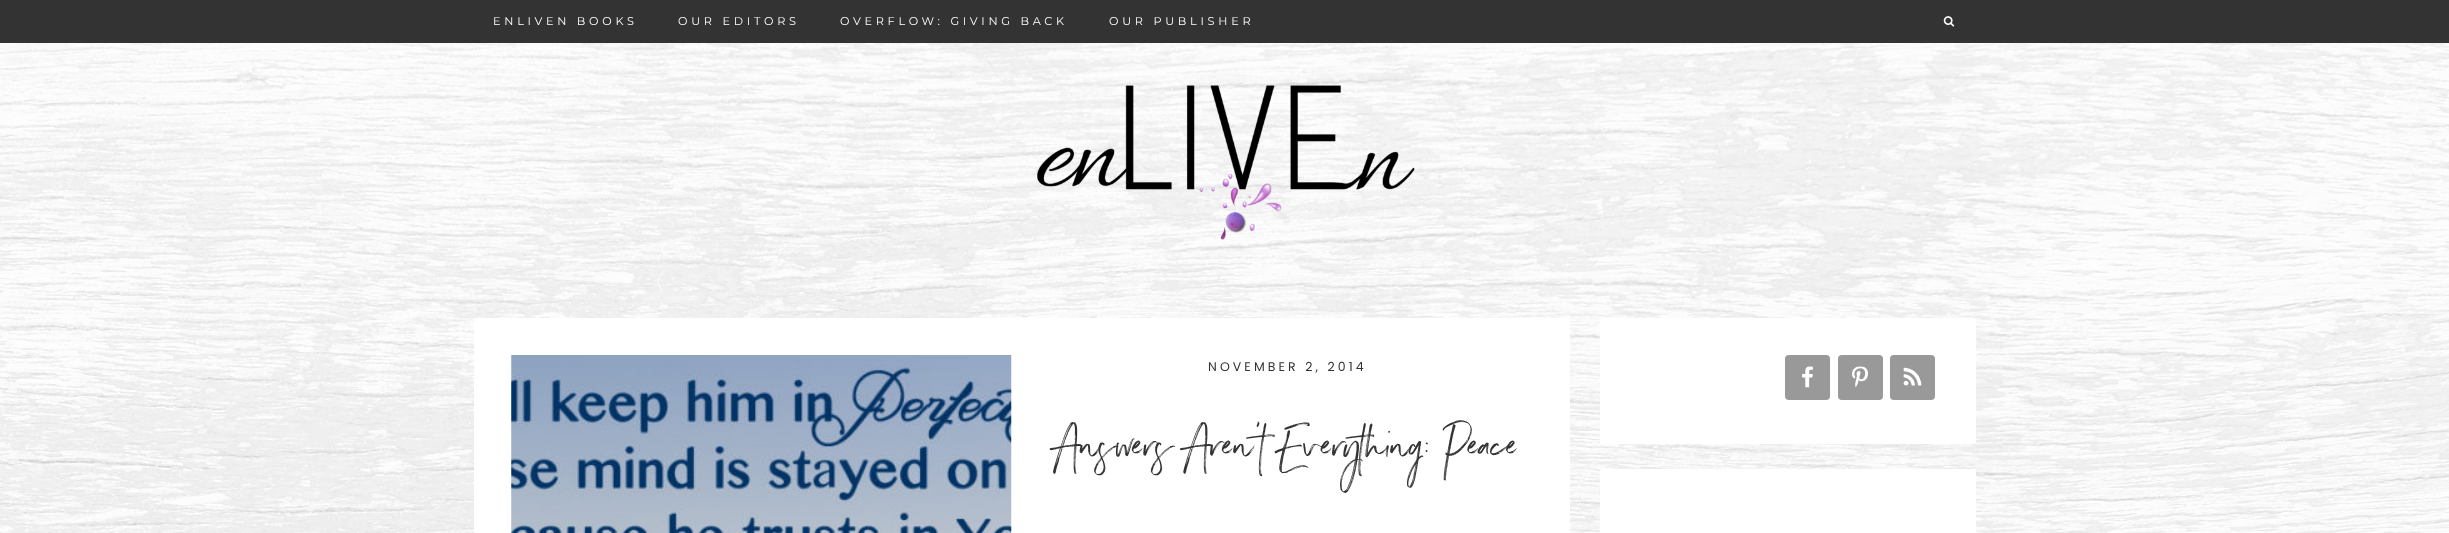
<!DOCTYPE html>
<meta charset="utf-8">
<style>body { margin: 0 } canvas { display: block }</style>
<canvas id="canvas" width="2449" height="533"></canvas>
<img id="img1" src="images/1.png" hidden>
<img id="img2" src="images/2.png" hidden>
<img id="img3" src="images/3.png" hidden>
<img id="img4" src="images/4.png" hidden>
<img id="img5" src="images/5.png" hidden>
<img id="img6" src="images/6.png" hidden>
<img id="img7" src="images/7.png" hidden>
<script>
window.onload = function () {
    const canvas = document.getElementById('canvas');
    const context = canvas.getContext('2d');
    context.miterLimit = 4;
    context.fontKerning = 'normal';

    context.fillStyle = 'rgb(255, 255, 255)';
    context.fillRect(0, 0, 2449, 533);
    context.drawImage(document.getElementById('img1'), 0, 43, 2449, 490);
    context.fillStyle = 'rgb(51, 51, 51)';
    context.fillRect(0, 0, 2449, 43);
    context.drawImage(document.getElementById('img2'), 1943, 16, 12, 11);
    context.drawImage(document.getElementById('img3'), 1037, 85, 378, 155);
    context.fillStyle = 'rgb(255, 255, 255)';
    context.fillRect(474, 318, 1096, 215);
    context.drawImage(document.getElementById('img4'), 511, 355, 501, 178);
    context.fillRect(1600, 318, 376, 126);
    context.fillStyle = 'rgb(153, 153, 153)';
    context.beginPath();
    context.roundRect(1785, 355, 45, 45, 4);
    context.fill();
    context.drawImage(document.getElementById('img5'), 1802, 366, 11, 22);
    context.beginPath();
    context.roundRect(1838, 355, 45, 45, 4);
    context.fill();
    context.drawImage(document.getElementById('img6'), 1852, 366, 16, 21);
    context.beginPath();
    context.roundRect(1890, 355, 45, 45, 4);
    context.fill();
    context.drawImage(document.getElementById('img7'), 1903, 367, 19, 19);
    context.fillStyle = 'rgb(255, 255, 255)';
    context.fillRect(1600, 469, 376, 64);
    context.letterSpacing = '3.75px';
    context.font = '11.25px Montserrat';
    context.fillText('ENLIVEN BOOKS', 493, 25);
    context.fillText('OUR EDITORS', 678, 25);
    context.fillText('OVERFLOW: GIVING BACK', 840, 25);
    context.fillText('OUR PUBLISHER', 1109, 25);
    context.letterSpacing = '3.1px';
    context.font = '12.5px Poppins';
    context.fillStyle = 'rgb(51, 51, 51)';
    context.fillText('NOVEMBER 2, 2014', 1208, 371);
    context.letterSpacing = '0px';
    context.font = '62.5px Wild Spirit';
    context.fillText('Answers Aren’t Everything: Peace', 1056, 467);
};
</script>
